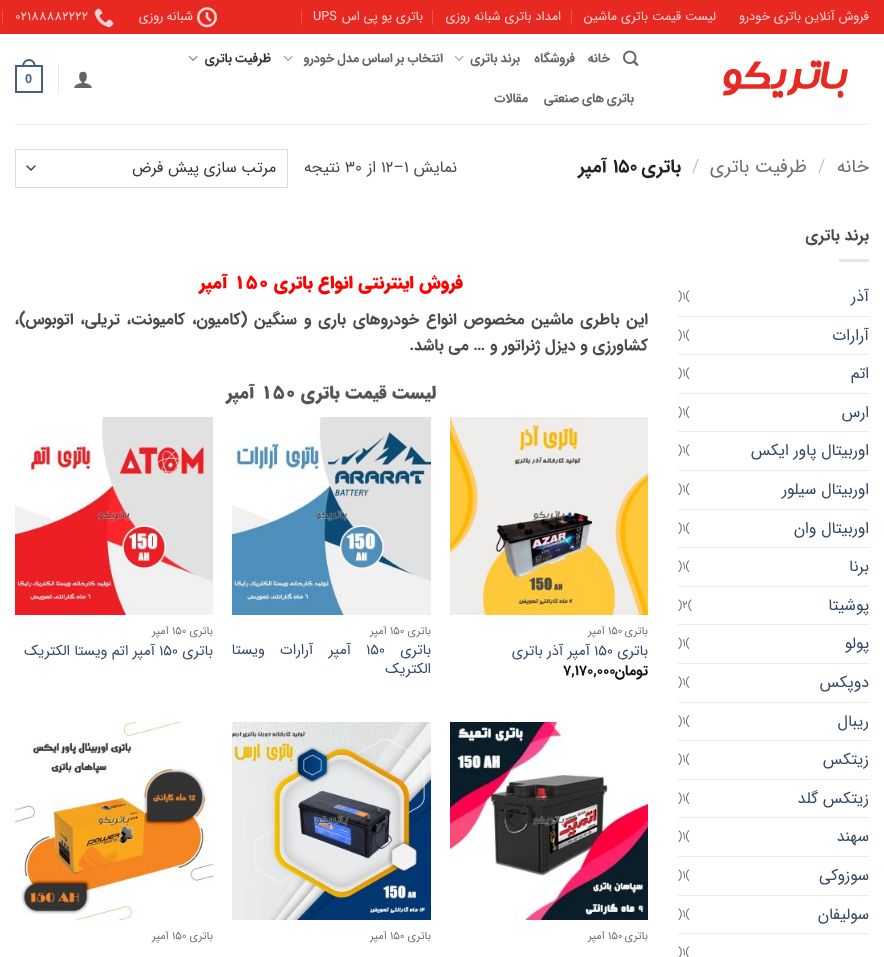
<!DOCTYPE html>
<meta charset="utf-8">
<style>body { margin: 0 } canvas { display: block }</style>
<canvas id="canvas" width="884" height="957"></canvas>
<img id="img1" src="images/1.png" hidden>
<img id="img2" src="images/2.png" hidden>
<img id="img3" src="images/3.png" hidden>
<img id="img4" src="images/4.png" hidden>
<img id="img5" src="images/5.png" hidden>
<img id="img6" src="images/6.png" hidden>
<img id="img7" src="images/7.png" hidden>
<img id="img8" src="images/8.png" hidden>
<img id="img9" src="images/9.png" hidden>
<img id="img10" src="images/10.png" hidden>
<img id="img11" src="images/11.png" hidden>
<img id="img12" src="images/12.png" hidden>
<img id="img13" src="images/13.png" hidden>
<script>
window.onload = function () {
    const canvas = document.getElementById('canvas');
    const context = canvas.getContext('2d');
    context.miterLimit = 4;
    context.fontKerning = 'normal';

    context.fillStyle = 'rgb(255, 255, 255)';
    context.fillRect(0, 0, 884, 957);
    context.fillStyle = 'rgb(232, 41, 34)';
    context.fillRect(0, 0, 884, 34);
    context.fillStyle = 'rgb(237, 84, 78)';
    context.fillRect(571, 10, 1, 15);
    context.fillRect(432, 10, 1, 15);
    context.fillRect(301, 10, 1, 15);
    context.drawImage(document.getElementById('img1'), 197, 7, 20, 21);
    context.drawImage(document.getElementById('img2'), 94, 8, 20, 20);
    context.fillRect(2, 10, 1, 15);
    context.drawImage(document.getElementById('img3'), 723, 60, 125, 38);
    context.drawImage(document.getElementById('img4'), 623, 50, 16, 16);
    context.drawImage(document.getElementById('img5'), 454, 55, 10, 6);
    context.drawImage(document.getElementById('img5'), 283, 55, 10, 6);
    context.drawImage(document.getElementById('img6'), 188, 55, 10, 6);
    context.drawImage(document.getElementById('img7'), 74, 71, 18, 17);
    context.fillStyle = 'rgb(230, 230, 230)';
    context.fillRect(58, 64, 1, 30);
    context.strokeStyle = 'rgb(68, 96, 132)';
    context.lineWidth = 2;
    context.strokeRect(16, 66, 26, 26);
    context.fillStyle = 'rgb(68, 96, 132)';
    context.beginPath();
    context.moveTo(29, 59);
    context.bezierCurveTo(33.5, 59, 36, 63, 36, 67);
    context.lineTo(22, 67);
    context.bezierCurveTo(22, 63, 24.5, 59, 29, 59);
    context.closePath();
    context.moveTo(29, 61);
    context.bezierCurveTo(32.5, 61, 34, 64, 34, 67);
    context.lineTo(24, 67);
    context.bezierCurveTo(24, 64, 25.5, 61, 29, 61);
    context.closePath();
    context.fill('evenodd');
    context.fillStyle = 'rgb(237, 237, 237)';
    context.fillRect(15, 124, 854, 1);
    context.beginPath();
    context.moveTo(27, 166);
    context.lineTo(31, 170);
    context.lineTo(35, 166);
    context.strokeStyle = 'rgb(51, 51, 51)';
    context.lineWidth = 1.3;
    context.lineCap = 'round';
    context.lineJoin = 'round';
    context.stroke();
    context.strokeStyle = 'rgb(221, 221, 221)';
    context.lineWidth = 1;
    context.lineJoin = 'miter';
    context.strokeRect(15.5, 149.5, 272, 38);
    context.fillStyle = 'rgb(230, 230, 230)';
    context.fillRect(839, 259, 30, 3);
    context.fillStyle = 'rgb(236, 236, 236)';
    context.fillRect(678, 316, 191, 1);
    context.fillRect(678, 354, 191, 1);
    context.fillRect(678, 393, 191, 1);
    context.fillRect(678, 431, 191, 1);
    context.fillRect(678, 470, 191, 1);
    context.fillRect(678, 509, 191, 1);
    context.fillRect(678, 547, 191, 1);
    context.fillRect(678, 586, 191, 1);
    context.fillRect(678, 624, 191, 1);
    context.fillRect(678, 663, 191, 1);
    context.fillRect(678, 702, 191, 1);
    context.fillRect(678, 740, 191, 1);
    context.fillRect(678, 779, 191, 1);
    context.fillRect(678, 817, 191, 1);
    context.fillRect(678, 856, 191, 1);
    context.fillRect(678, 895, 191, 1);
    context.fillRect(678, 933, 191, 1);
    context.drawImage(document.getElementById('img8'), 450, 417, 198, 198);
    context.drawImage(document.getElementById('img9'), 232, 417, 199, 198);
    context.drawImage(document.getElementById('img10'), 15, 417, 198, 198);
    context.drawImage(document.getElementById('img11'), 450, 722, 198, 198);
    context.drawImage(document.getElementById('img12'), 232, 722, 199, 198);
    context.drawImage(document.getElementById('img13'), 15, 722, 198, 198);
    context.direction = 'rtl';
    context.font = '12.75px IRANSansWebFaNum';
    context.fillStyle = 'rgb(250, 212, 211)';
    context.fillText('فروش آنلاین باتری خودرو', 869, 20);
    context.fillText('لیست قیمت باتری ماشین', 716, 20);
    context.fillText('امداد باتری شبانه روزی', 561, 20);
    context.fillText('باتری یو پی اس', 423, 20);
    context.direction = 'ltr';
    context.fillText('UPS', 313, 20);
    context.letterSpacing = '0.25px';
    context.wordSpacing = '-1px';
    context.direction = 'rtl';
    context.fillText('شبانه روزی', 193, 20);
    context.wordSpacing = '0px';
    context.direction = 'ltr';
    context.fillText('02188882222', 15, 20);
    context.direction = 'rtl';
    context.font = 'bold 12.75px IRANSansWebFaNum';
    context.fillStyle = 'rgb(101, 101, 101)';
    context.fillText('خانه', 610, 62);
    context.fillText('فروشگاه', 575, 62);
    context.wordSpacing = '-1px';
    context.fillText('برند باتری', 520, 62);
    context.fillText('انتخاب بر اساس مدل خودرو', 443, 62);
    context.fillStyle = 'rgb(51, 51, 51)';
    context.fillText('ظرفیت باتری', 271, 62);
    context.fillStyle = 'rgb(101, 101, 101)';
    context.fillText('باتری های صنعتی', 634, 102);
    context.wordSpacing = '0px';
    context.fillText('مقالات', 528, 102);
    context.direction = 'ltr';
    context.font = 'bold 12.75px Liberation Sans';
    context.fillStyle = 'rgb(68, 96, 132)';
    context.fillText('0', 25, 83);
    context.letterSpacing = '0px';
    context.direction = 'rtl';
    context.font = '18.5px IRANSansWebFaNum';
    context.fillStyle = 'rgb(110, 110, 110)';
    context.fillText('خانه', 869, 172);
    context.direction = 'ltr';
    context.font = '300 18.5px IRANSansWebFaNum';
    context.fillStyle = 'rgb(178, 178, 178)';
    context.fillText('/', 818, 172);
    context.direction = 'rtl';
    context.font = '18.5px IRANSansWebFaNum';
    context.fillStyle = 'rgb(110, 110, 110)';
    context.fillText('ظرفیت باتری', 807, 172);
    context.direction = 'ltr';
    context.font = '300 18.5px IRANSansWebFaNum';
    context.fillStyle = 'rgb(178, 178, 178)';
    context.fillText('/', 692, 172);
    context.direction = 'rtl';
    context.font = 'bold 18.5px IRANSansWebFaNum';
    context.fillStyle = 'rgb(34, 34, 34)';
    context.fillText('باتری', 681, 172);
    context.direction = 'ltr';
    context.fillText('150', 613, 172);
    context.direction = 'rtl';
    context.fillText('آمپر', 607, 172);
    context.font = '16px IRANSansWebFaNum';
    context.fillStyle = 'rgb(74, 74, 74)';
    context.fillText('نمایش', 457, 172);
    context.direction = 'ltr';
    context.fillText('12–1', 381, 172);
    context.direction = 'rtl';
    context.fillText('از', 376, 172);
    context.direction = 'ltr';
    context.fillText('30', 345, 172);
    context.direction = 'rtl';
    context.fillText('نتیجه', 340, 172);
    context.font = '15.5px IRANSansWebFaNum';
    context.fillStyle = 'rgb(51, 51, 51)';
    context.fillText('مرتب سازی پیش فرض', 276, 172);
    context.font = 'bold 16px IRANSansWebFaNum';
    context.fillStyle = 'rgb(74, 74, 74)';
    context.fillText('برند باتری', 869, 240);
    context.font = '16px IRANSansWebFaNum';
    context.fillStyle = 'rgb(51, 72, 98)';
    context.fillText('آذر', 869, 301);
    context.direction = 'ltr';
    context.font = '11px IRANSansWebFaNum';
    context.fillStyle = 'rgb(110, 110, 110)';
    context.fillText(')1(', 678, 299);
    context.direction = 'rtl';
    context.font = '16px IRANSansWebFaNum';
    context.fillStyle = 'rgb(51, 72, 98)';
    context.fillText('آرارات', 869, 340);
    context.direction = 'ltr';
    context.font = '11px IRANSansWebFaNum';
    context.fillStyle = 'rgb(110, 110, 110)';
    context.fillText(')1(', 678, 338);
    context.direction = 'rtl';
    context.font = '16px IRANSansWebFaNum';
    context.fillStyle = 'rgb(51, 72, 98)';
    context.fillText('اتم', 869, 378);
    context.direction = 'ltr';
    context.font = '11px IRANSansWebFaNum';
    context.fillStyle = 'rgb(110, 110, 110)';
    context.fillText(')1(', 678, 376);
    context.direction = 'rtl';
    context.font = '16px IRANSansWebFaNum';
    context.fillStyle = 'rgb(51, 72, 98)';
    context.fillText('ارس', 869, 417);
    context.direction = 'ltr';
    context.font = '11px IRANSansWebFaNum';
    context.fillStyle = 'rgb(110, 110, 110)';
    context.fillText(')1(', 678, 415);
    context.direction = 'rtl';
    context.font = '16px IRANSansWebFaNum';
    context.fillStyle = 'rgb(51, 72, 98)';
    context.fillText('اوربیتال پاور ایکس', 869, 455);
    context.direction = 'ltr';
    context.font = '11px IRANSansWebFaNum';
    context.fillStyle = 'rgb(110, 110, 110)';
    context.fillText(')1(', 678, 453);
    context.direction = 'rtl';
    context.font = '16px IRANSansWebFaNum';
    context.fillStyle = 'rgb(51, 72, 98)';
    context.fillText('اوربیتال سیلور', 869, 494);
    context.direction = 'ltr';
    context.font = '11px IRANSansWebFaNum';
    context.fillStyle = 'rgb(110, 110, 110)';
    context.fillText(')1(', 678, 492);
    context.direction = 'rtl';
    context.font = '16px IRANSansWebFaNum';
    context.fillStyle = 'rgb(51, 72, 98)';
    context.fillText('اوربیتال وان', 869, 533);
    context.direction = 'ltr';
    context.font = '11px IRANSansWebFaNum';
    context.fillStyle = 'rgb(110, 110, 110)';
    context.fillText(')1(', 678, 531);
    context.direction = 'rtl';
    context.font = '16px IRANSansWebFaNum';
    context.fillStyle = 'rgb(51, 72, 98)';
    context.fillText('برنا', 869, 571);
    context.direction = 'ltr';
    context.font = '11px IRANSansWebFaNum';
    context.fillStyle = 'rgb(110, 110, 110)';
    context.fillText(')1(', 678, 569);
    context.direction = 'rtl';
    context.font = '16px IRANSansWebFaNum';
    context.fillStyle = 'rgb(51, 72, 98)';
    context.fillText('پوشیتا', 869, 610);
    context.direction = 'ltr';
    context.font = '11px IRANSansWebFaNum';
    context.fillStyle = 'rgb(110, 110, 110)';
    context.fillText(')2(', 678, 608);
    context.direction = 'rtl';
    context.font = '16px IRANSansWebFaNum';
    context.fillStyle = 'rgb(51, 72, 98)';
    context.fillText('پولو', 869, 648);
    context.direction = 'ltr';
    context.font = '11px IRANSansWebFaNum';
    context.fillStyle = 'rgb(110, 110, 110)';
    context.fillText(')1(', 678, 646);
    context.direction = 'rtl';
    context.font = '16px IRANSansWebFaNum';
    context.fillStyle = 'rgb(51, 72, 98)';
    context.fillText('دوپکس', 869, 687);
    context.direction = 'ltr';
    context.font = '11px IRANSansWebFaNum';
    context.fillStyle = 'rgb(110, 110, 110)';
    context.fillText(')1(', 678, 685);
    context.direction = 'rtl';
    context.font = '16px IRANSansWebFaNum';
    context.fillStyle = 'rgb(51, 72, 98)';
    context.fillText('ریبال', 869, 726);
    context.direction = 'ltr';
    context.font = '11px IRANSansWebFaNum';
    context.fillStyle = 'rgb(110, 110, 110)';
    context.fillText(')1(', 678, 724);
    context.direction = 'rtl';
    context.font = '16px IRANSansWebFaNum';
    context.fillStyle = 'rgb(51, 72, 98)';
    context.fillText('زیتکس', 869, 764);
    context.direction = 'ltr';
    context.font = '11px IRANSansWebFaNum';
    context.fillStyle = 'rgb(110, 110, 110)';
    context.fillText(')1(', 678, 762);
    context.direction = 'rtl';
    context.font = '16px IRANSansWebFaNum';
    context.fillStyle = 'rgb(51, 72, 98)';
    context.fillText('زیتکس گلد', 869, 803);
    context.direction = 'ltr';
    context.font = '11px IRANSansWebFaNum';
    context.fillStyle = 'rgb(110, 110, 110)';
    context.fillText(')1(', 678, 801);
    context.direction = 'rtl';
    context.font = '16px IRANSansWebFaNum';
    context.fillStyle = 'rgb(51, 72, 98)';
    context.fillText('سهند', 869, 841);
    context.direction = 'ltr';
    context.font = '11px IRANSansWebFaNum';
    context.fillStyle = 'rgb(110, 110, 110)';
    context.fillText(')1(', 678, 839);
    context.direction = 'rtl';
    context.font = '16px IRANSansWebFaNum';
    context.fillStyle = 'rgb(51, 72, 98)';
    context.fillText('سوزوکی', 869, 880);
    context.direction = 'ltr';
    context.font = '11px IRANSansWebFaNum';
    context.fillStyle = 'rgb(110, 110, 110)';
    context.fillText(')1(', 678, 878);
    context.direction = 'rtl';
    context.font = '16px IRANSansWebFaNum';
    context.fillStyle = 'rgb(51, 72, 98)';
    context.fillText('سولیفان', 869, 919);
    context.direction = 'ltr';
    context.font = '11px IRANSansWebFaNum';
    context.fillStyle = 'rgb(110, 110, 110)';
    context.fillText(')1(', 678, 917);
    context.fillText(')1(', 678, 955);
    context.direction = 'rtl';
    context.font = '900 18px IRANSansWebFaNum';
    context.fillStyle = 'rgb(255, 0, 0)';
    context.fillText('فروش اینترنتی انواع باتری', 463, 288);
    context.direction = 'ltr';
    context.fillText('150', 234, 288);
    context.direction = 'rtl';
    context.fillText('آمپر', 228, 288);
    context.wordSpacing = '2.25px';
    context.font = 'bold 16px IRANSansWebFaNum';
    context.fillStyle = 'rgb(74, 74, 74)';
    context.fillText('این باطری ماشین مخصوص انواع خودروهای باری و سنگین (کامیون، کامیونت، تریلی، اتوبوس)،', 648, 324);
    context.wordSpacing = '0px';
    context.fillText('کشاورزی و دیزل ژنراتور و … می باشد.', 648, 350);
    context.font = '900 18px IRANSansWebFaNum';
    context.fillStyle = 'rgb(85, 85, 85)';
    context.fillText('لیست قیمت باتری', 436, 398);
    context.direction = 'ltr';
    context.fillText('150', 261, 398);
    context.direction = 'rtl';
    context.fillText('آمپر', 255, 398);
    context.font = '11px IRANSansWebFaNum';
    context.fillStyle = 'rgb(110, 110, 110)';
    context.fillText('باتری', 648, 634);
    context.direction = 'ltr';
    context.fillText('150', 608, 634);
    context.save();
    context.beginPath();
    context.rect(450, 626, 198, 13);
    context.clip();
    context.direction = 'rtl';
    context.fillText('آمپر', 605, 634);
    context.restore();
    context.direction = 'rtl';
    context.font = '14.5px IRANSansWebFaNum';
    context.fillStyle = 'rgb(51, 72, 98)';
    context.fillText('باتری', 648, 655);
    context.direction = 'ltr';
    context.fillText('150', 594, 655);
    context.direction = 'rtl';
    context.fillText('آمپر آذر باتری', 590, 655);
    context.font = 'bold 14.5px IRANSansWebFaNum';
    context.fillStyle = 'rgb(17, 17, 17)';
    context.fillText('تومان', 648, 675);
    context.direction = 'ltr';
    context.fillText('7,170,000', 563, 675);
    context.direction = 'rtl';
    context.font = '11px IRANSansWebFaNum';
    context.fillStyle = 'rgb(110, 110, 110)';
    context.fillText('باتری', 431, 634);
    context.direction = 'ltr';
    context.fillText('150', 390, 634);
    context.save();
    context.beginPath();
    context.rect(232, 626, 199, 13);
    context.clip();
    context.direction = 'rtl';
    context.fillText('آمپر', 387, 634);
    context.restore();
    context.direction = 'rtl';
    context.font = '14.5px IRANSansWebFaNum';
    context.fillStyle = 'rgb(51, 72, 98)';
    context.fillText('باتری', 431, 654);
    context.direction = 'ltr';
    context.fillText('150', 366, 654);
    context.wordSpacing = '11px';
    context.direction = 'rtl';
    context.fillText('آمپر آرارات ویستا', 351, 654);
    context.wordSpacing = '0px';
    context.fillText('الکتریک', 431, 673);
    context.font = '11px IRANSansWebFaNum';
    context.fillStyle = 'rgb(110, 110, 110)';
    context.fillText('باتری', 213, 634);
    context.direction = 'ltr';
    context.fillText('150', 172, 634);
    context.save();
    context.beginPath();
    context.rect(15, 626, 198, 13);
    context.clip();
    context.direction = 'rtl';
    context.fillText('آمپر', 169, 634);
    context.restore();
    context.direction = 'rtl';
    context.font = '14.5px IRANSansWebFaNum';
    context.fillStyle = 'rgb(51, 72, 98)';
    context.fillText('باتری', 213, 655);
    context.direction = 'ltr';
    context.fillText('150', 159, 655);
    context.direction = 'rtl';
    context.fillText('آمپر اتم ویستا الکتریک', 155, 655);
    context.font = '11px IRANSansWebFaNum';
    context.fillStyle = 'rgb(110, 110, 110)';
    context.fillText('باتری', 648, 939);
    context.direction = 'ltr';
    context.fillText('150', 608, 939);
    context.save();
    context.beginPath();
    context.rect(450, 931, 198, 13);
    context.clip();
    context.direction = 'rtl';
    context.fillText('آمپر', 605, 939);
    context.restore();
    context.direction = 'rtl';
    context.fillText('باتری', 431, 939);
    context.direction = 'ltr';
    context.fillText('150', 390, 939);
    context.save();
    context.beginPath();
    context.rect(232, 931, 199, 13);
    context.clip();
    context.direction = 'rtl';
    context.fillText('آمپر', 387, 939);
    context.restore();
    context.direction = 'rtl';
    context.fillText('باتری', 213, 939);
    context.direction = 'ltr';
    context.fillText('150', 172, 939);
    context.save();
    context.beginPath();
    context.rect(15, 931, 198, 13);
    context.clip();
    context.direction = 'rtl';
    context.fillText('آمپر', 169, 939);
    context.restore();
};
</script>
